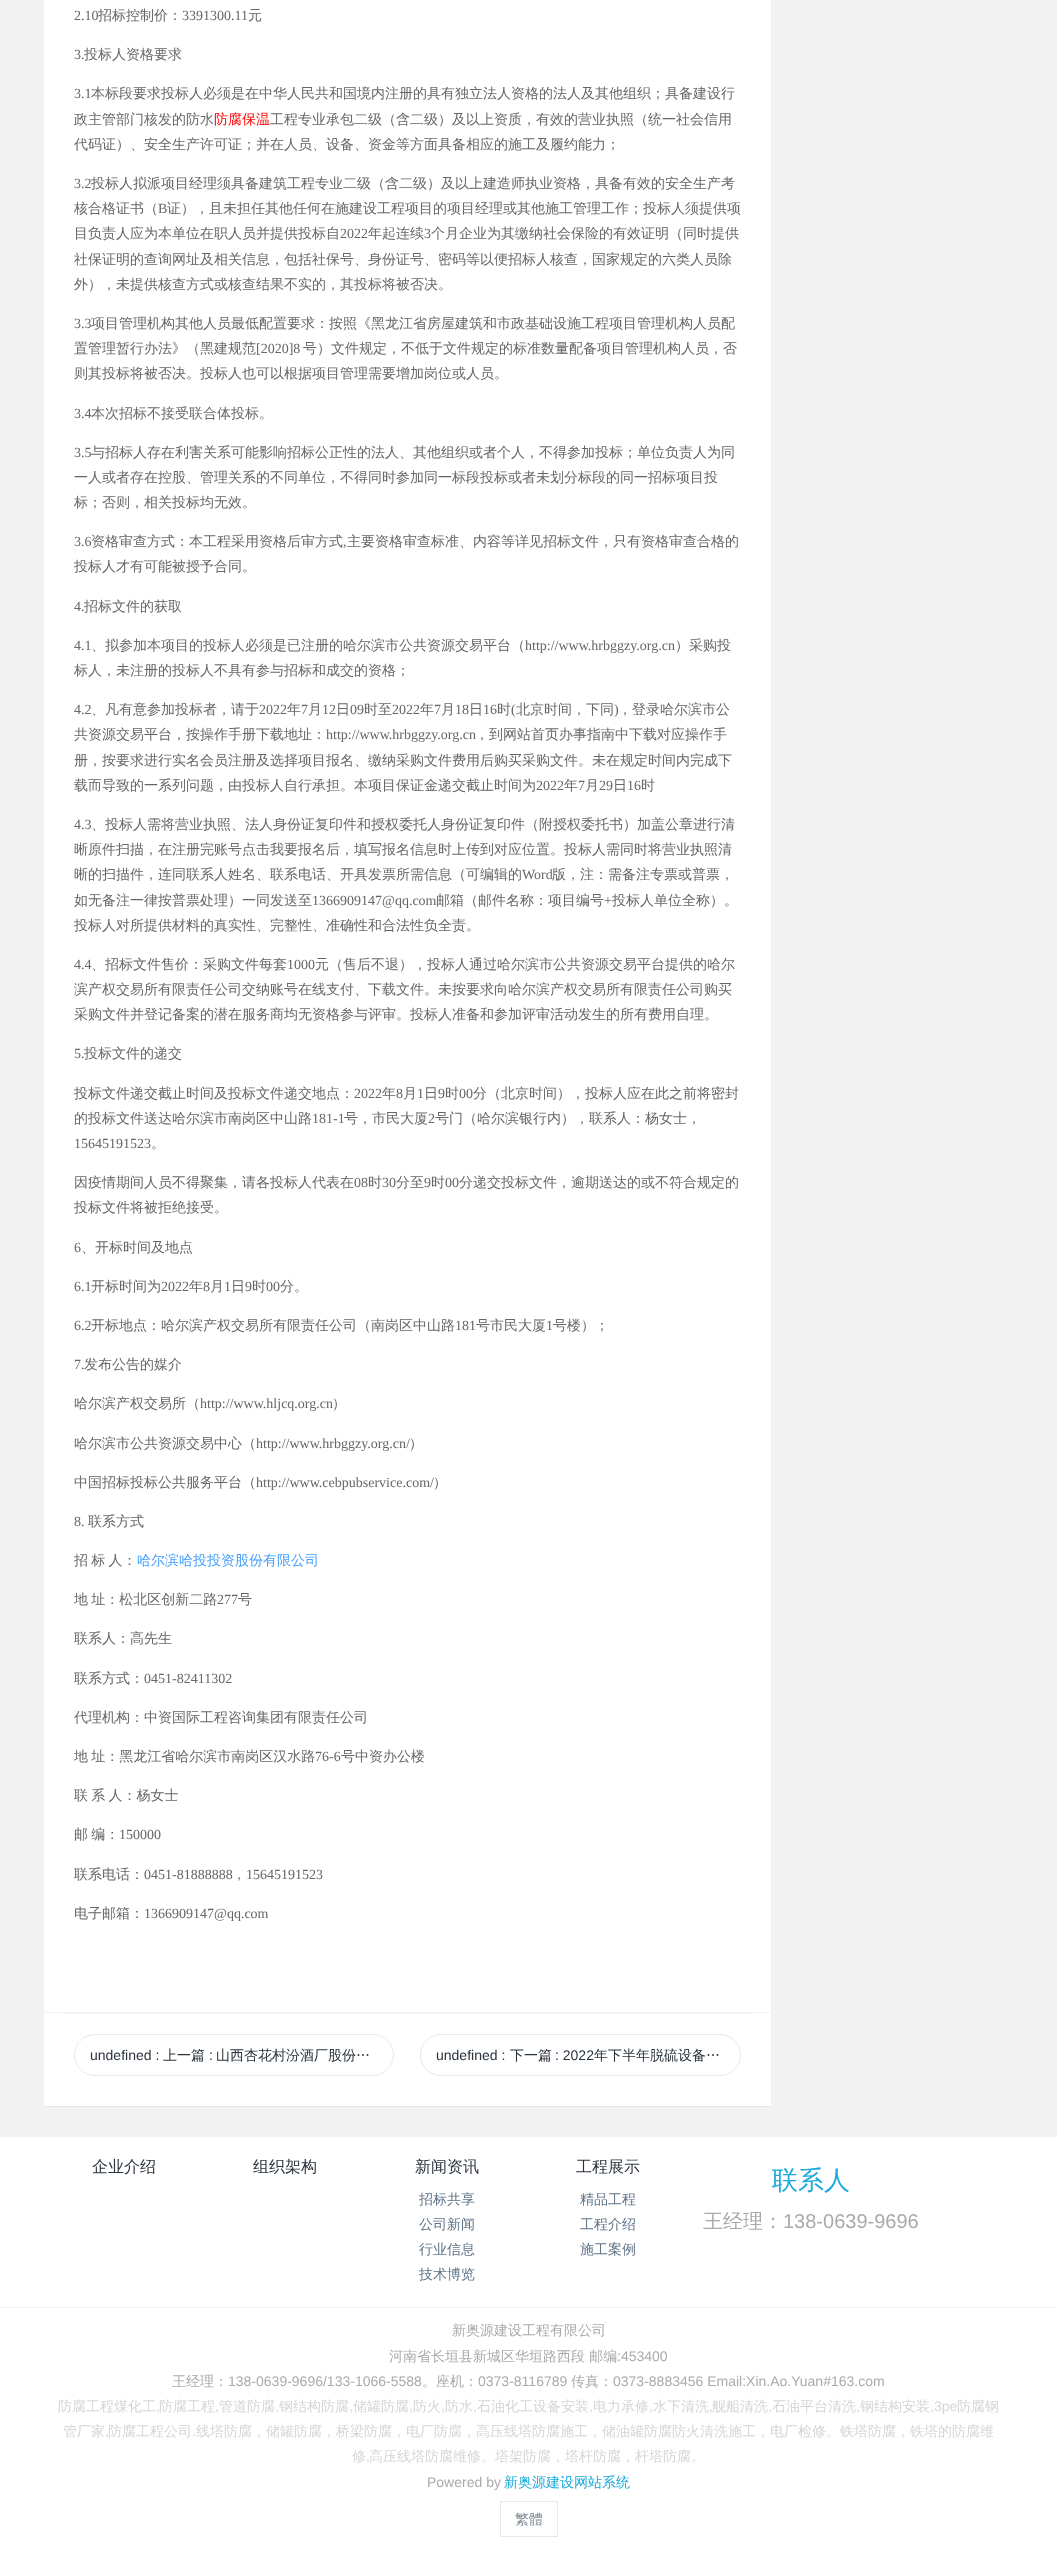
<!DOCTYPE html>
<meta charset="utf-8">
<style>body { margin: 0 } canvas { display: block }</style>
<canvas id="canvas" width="1057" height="2567"></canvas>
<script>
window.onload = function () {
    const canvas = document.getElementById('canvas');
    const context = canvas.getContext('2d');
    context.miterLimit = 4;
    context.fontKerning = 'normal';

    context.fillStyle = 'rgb(255, 255, 255)';
    context.fillRect(0, 0, 1057, 2567);
    context.fillStyle = 'rgb(242, 242, 242)';
    context.fillRect(0, 0, 1057, 2136);
    context.fillStyle = 'rgba(0, 0, 0, 0.05)';
    context.filter = 'blur(0.5px)';
    context.beginPath();
    context.rect(44, -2, 727, 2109);
    context.fill();
    context.filter = 'none';
    context.fillStyle = 'rgb(255, 255, 255)';
    context.fillRect(44, 0, 727, 2106);
    context.fillStyle = 'rgb(240, 242, 245)';
    context.fillRect(44, 2012, 727, 1);
    context.fillStyle = 'rgb(247, 247, 247)';
    context.fillRect(62, 2013, 690, 1);
    context.beginPath();
    context.roundRect(74.5, 2034.5, 319, 41, 20.5);
    context.strokeStyle = 'rgb(228, 234, 236)';
    context.stroke();
    context.beginPath();
    context.roundRect(420.5, 2034.5, 320, 41, 20.5);
    context.stroke();
    context.fillStyle = 'rgb(240, 242, 245)';
    context.fillRect(0, 2136, 1057, 1);
    context.fillRect(0, 2307, 1057, 1);
    context.strokeRect(500.5, 2501.5, 57, 35);
    context.font = '14px Liberation Serif';
    context.fillStyle = 'rgb(102, 102, 102)';
    context.fillText('2.10', 74, 20);
    context.font = '500 14px WenQuanYi Zen Hei';
    context.fillText('招标控制价：', 98, 20);
    context.font = '14px Liberation Serif';
    context.fillText('3391300.11', 182, 20);
    context.font = '500 14px WenQuanYi Zen Hei';
    context.fillText('元', 248, 20);
    context.font = '14px Liberation Serif';
    context.fillText('3.', 74, 59);
    context.font = '500 14px WenQuanYi Zen Hei';
    context.fillText('投标人资格要求', 84, 59);
    context.font = '14px Liberation Serif';
    context.fillText('3.1', 74, 98);
    context.font = '500 14px WenQuanYi Zen Hei';
    context.fillText('本标段要求投标人必须是在中华人民共和国境内注册的具有独立法人资格的法人及其他组织；具备建设行', 91, 98);
    context.fillText('政主管部门核发的防水', 74, 124);
    context.fillStyle = 'rgb(255, 0, 0)';
    context.fillText('防腐保温', 214, 124);
    context.fillStyle = 'rgb(102, 102, 102)';
    context.fillText('工程专业承包二级（含二级）及以上资质，有效的营业执照（统一社会信用', 270, 124);
    context.fillText('代码证）、安全生产许可证；并在人员、设备、资金等方面具备相应的施工及履约能力；', 74, 149);
    context.font = '14px Liberation Serif';
    context.fillText('3.2', 74, 188);
    context.font = '500 14px WenQuanYi Zen Hei';
    context.fillText('投标人拟派项目经理须具备建筑工程专业二级（含二级）及以上建造师执业资格，具备有效的安全生产考', 91, 188);
    context.fillText('核合格证书（', 74, 213);
    context.font = '14px Liberation Serif';
    context.fillText('B', 158, 213);
    context.font = '500 14px WenQuanYi Zen Hei';
    context.fillText('证），且未担任其他任何在施建设工程项目的项目经理或其他施工管理工作；投标人须提供项', 167, 213);
    context.fillText('目负责人应为本单位在职人员并提供投标自', 74, 238);
    context.font = '14px Liberation Serif';
    context.fillText('2022', 340, 238);
    context.font = '500 14px WenQuanYi Zen Hei';
    context.fillText('年起连续', 368, 238);
    context.font = '14px Liberation Serif';
    context.fillText('3', 424, 238);
    context.font = '500 14px WenQuanYi Zen Hei';
    context.fillText('个月企业为其缴纳社会保险的有效证明（同时提供', 431, 238);
    context.fillText('社保证明的查询网址及相关信息，包括社保号、身份证号、密码等以便招标人核查，国家规定的六类人员除', 74, 264);
    context.fillText('外），未提供核查方式或核查结果不实的，其投标将被否决。', 74, 289);
    context.font = '14px Liberation Serif';
    context.fillText('3.3', 74, 328);
    context.font = '500 14px WenQuanYi Zen Hei';
    context.fillText('项目管理机构其他人员最低配置要求：按照《黑龙江省房屋建筑和市政基础设施工程项目管理机构人员配', 91, 328);
    context.fillText('置管理暂行办法》（黑建规范', 74, 353);
    context.font = '14px Liberation Serif';
    context.fillText('[2020]8', 256, 353);
    context.font = '500 14px WenQuanYi Zen Hei';
    context.fillText('号）文件规定，不低于文件规定的标准数量配备项目管理机构人员，否', 303, 353);
    context.fillText('则其投标将被否决。投标人也可以根据项目管理需要增加岗位或人员。', 74, 378);
    context.font = '14px Liberation Serif';
    context.fillText('3.4', 74, 418);
    context.font = '500 14px WenQuanYi Zen Hei';
    context.fillText('本次招标不接受联合体投标。', 91, 418);
    context.font = '14px Liberation Serif';
    context.fillText('3.5', 74, 457);
    context.font = '500 14px WenQuanYi Zen Hei';
    context.fillText('与招标人存在利害关系可能影响招标公正性的法人、其他组织或者个人，不得参加投标；单位负责人为同', 91, 457);
    context.fillText('一人或者存在控股、管理关系的不同单位，不得同时参加同一标段投标或者未划分标段的同一招标项目投', 74, 482);
    context.fillText('标；否则，相关投标均无效。', 74, 507);
    context.font = '14px Liberation Serif';
    context.fillText('3.6', 74, 546);
    context.font = '500 14px WenQuanYi Zen Hei';
    context.fillText('资格审查方式：本工程采用资格后审方式', 91, 546);
    context.font = '14px Liberation Serif';
    context.fillText(',', 343, 546);
    context.font = '500 14px WenQuanYi Zen Hei';
    context.fillText('主要资格审查标准、内容等详见招标文件，只有资格审查合格的', 347, 546);
    context.fillText('投标人才有可能被授予合同。', 74, 571);
    context.font = '14px Liberation Serif';
    context.fillText('4.', 74, 611);
    context.font = '500 14px WenQuanYi Zen Hei';
    context.fillText('招标文件的获取', 84, 611);
    context.font = '14px Liberation Serif';
    context.fillText('4.1', 74, 650);
    context.font = '500 14px WenQuanYi Zen Hei';
    context.fillText('、拟参加本项目的投标人必须是已注册的哈尔滨市公共资源交易平台（', 91, 650);
    context.font = '14px Liberation Serif';
    context.fillText('http://www.hrbggzy.org.cn', 525, 650);
    context.font = '500 14px WenQuanYi Zen Hei';
    context.fillText('）采购投', 675, 650);
    context.fillText('标人，未注册的投标人不具有参与招标和成交的资格；', 74, 675);
    context.font = '14px Liberation Serif';
    context.fillText('4.2', 74, 714);
    context.font = '500 14px WenQuanYi Zen Hei';
    context.fillText('、凡有意参加投标者，请于', 91, 714);
    context.font = '14px Liberation Serif';
    context.fillText('2022', 259, 714);
    context.font = '500 14px WenQuanYi Zen Hei';
    context.fillText('年', 287, 714);
    context.font = '14px Liberation Serif';
    context.fillText('7', 301, 714);
    context.font = '500 14px WenQuanYi Zen Hei';
    context.fillText('月', 308, 714);
    context.font = '14px Liberation Serif';
    context.fillText('12', 322, 714);
    context.font = '500 14px WenQuanYi Zen Hei';
    context.fillText('日', 336, 714);
    context.font = '14px Liberation Serif';
    context.fillText('09', 350, 714);
    context.font = '500 14px WenQuanYi Zen Hei';
    context.fillText('时至', 364, 714);
    context.font = '14px Liberation Serif';
    context.fillText('2022', 392, 714);
    context.font = '500 14px WenQuanYi Zen Hei';
    context.fillText('年', 420, 714);
    context.font = '14px Liberation Serif';
    context.fillText('7', 434, 714);
    context.font = '500 14px WenQuanYi Zen Hei';
    context.fillText('月', 441, 714);
    context.font = '14px Liberation Serif';
    context.fillText('18', 455, 714);
    context.font = '500 14px WenQuanYi Zen Hei';
    context.fillText('日', 469, 714);
    context.font = '14px Liberation Serif';
    context.fillText('16', 483, 714);
    context.font = '500 14px WenQuanYi Zen Hei';
    context.fillText('时', 497, 714);
    context.font = '14px Liberation Serif';
    context.fillText('(', 511, 714);
    context.font = '500 14px WenQuanYi Zen Hei';
    context.fillText('北京时间，下同', 516, 714);
    context.font = '14px Liberation Serif';
    context.fillText(')', 614, 714);
    context.font = '500 14px WenQuanYi Zen Hei';
    context.fillText('，登录哈尔滨市公', 618, 714);
    context.fillText('共资源交易平台，按操作手册下载地址：', 74, 739);
    context.font = '14px Liberation Serif';
    context.fillText('http://www.hrbggzy.org.cn', 326, 739);
    context.font = '500 14px WenQuanYi Zen Hei';
    context.fillText('，到网站首页办事指南中下载对应操作手', 475, 739);
    context.fillText('册，按要求进行实名会员注册及选择项目报名、缴纳采购文件费用后购买采购文件。未在规定时间内完成下', 74, 765);
    context.fillText('载而导致的一系列问题，由投标人自行承担。本项目保证金递交截止时间为', 74, 790);
    context.font = '14px Liberation Serif';
    context.fillText('2022', 536, 790);
    context.font = '500 14px WenQuanYi Zen Hei';
    context.fillText('年', 564, 790);
    context.font = '14px Liberation Serif';
    context.fillText('7', 578, 790);
    context.font = '500 14px WenQuanYi Zen Hei';
    context.fillText('月', 585, 790);
    context.font = '14px Liberation Serif';
    context.fillText('29', 599, 790);
    context.font = '500 14px WenQuanYi Zen Hei';
    context.fillText('日', 613, 790);
    context.font = '14px Liberation Serif';
    context.fillText('16', 627, 790);
    context.font = '500 14px WenQuanYi Zen Hei';
    context.fillText('时', 641, 790);
    context.font = '14px Liberation Serif';
    context.fillText('4.3', 74, 829);
    context.font = '500 14px WenQuanYi Zen Hei';
    context.fillText('、投标人需将营业执照、法人身份证复印件和授权委托人身份证复印件（附授权委托书）加盖公章进行清', 91, 829);
    context.fillText('晰原件扫描，在注册完账号点击我要报名后，填写报名信息时上传到对应位置。投标人需同时将营业执照清', 74, 854);
    context.fillText('晰的扫描件，连同联系人姓名、联系电话、开具发票所需信息（可编辑的', 74, 879);
    context.font = '14px Liberation Serif';
    context.fillText('Word', 522, 879);
    context.font = '500 14px WenQuanYi Zen Hei';
    context.fillText('版，注：需备注专票或普票，', 552, 879);
    context.fillText('如无备注一律按普票处理）一同发送至', 74, 905);
    context.font = '14px Liberation Serif';
    context.fillText('1366909147@qq.com', 312, 905);
    context.font = '500 14px WenQuanYi Zen Hei';
    context.fillText('邮箱（邮件名称：项目编号', 436, 905);
    context.font = '14px Liberation Serif';
    context.fillText('+', 604, 905);
    context.font = '500 14px WenQuanYi Zen Hei';
    context.fillText('投标人单位全称）。', 612, 905);
    context.fillText('投标人对所提供材料的真实性、完整性、准确性和合法性负全责。', 74, 930);
    context.font = '14px Liberation Serif';
    context.fillText('4.4', 74, 969);
    context.font = '500 14px WenQuanYi Zen Hei';
    context.fillText('、招标文件售价：采购文件每套', 91, 969);
    context.font = '14px Liberation Serif';
    context.fillText('1000', 287, 969);
    context.font = '500 14px WenQuanYi Zen Hei';
    context.fillText('元（售后不退），投标人通过哈尔滨市公共资源交易平台提供的哈尔', 315, 969);
    context.fillText('滨产权交易所有限责任公司交纳账号在线支付、下载文件。未按要求向哈尔滨产权交易所有限责任公司购买', 74, 994);
    context.fillText('采购文件并登记备案的潜在服务商均无资格参与评审。投标人准备和参加评审活动发生的所有费用自理。', 74, 1019);
    context.font = '14px Liberation Serif';
    context.fillText('5.', 74, 1058);
    context.font = '500 14px WenQuanYi Zen Hei';
    context.fillText('投标文件的递交', 84, 1058);
    context.fillText('投标文件递交截止时间及投标文件递交地点：', 74, 1098);
    context.font = '14px Liberation Serif';
    context.fillText('2022', 354, 1098);
    context.font = '500 14px WenQuanYi Zen Hei';
    context.fillText('年', 382, 1098);
    context.font = '14px Liberation Serif';
    context.fillText('8', 396, 1098);
    context.font = '500 14px WenQuanYi Zen Hei';
    context.fillText('月', 403, 1098);
    context.font = '14px Liberation Serif';
    context.fillText('1', 417, 1098);
    context.font = '500 14px WenQuanYi Zen Hei';
    context.fillText('日', 424, 1098);
    context.font = '14px Liberation Serif';
    context.fillText('9', 438, 1098);
    context.font = '500 14px WenQuanYi Zen Hei';
    context.fillText('时', 445, 1098);
    context.font = '14px Liberation Serif';
    context.fillText('00', 459, 1098);
    context.font = '500 14px WenQuanYi Zen Hei';
    context.fillText('分（北京时间），投标人应在此之前将密封', 473, 1098);
    context.fillText('的投标文件送达哈尔滨市南岗区中山路', 74, 1123);
    context.font = '14px Liberation Serif';
    context.fillText('181-1', 312, 1123);
    context.font = '500 14px WenQuanYi Zen Hei';
    context.fillText('号，市民大厦', 344, 1123);
    context.font = '14px Liberation Serif';
    context.fillText('2', 428, 1123);
    context.font = '500 14px WenQuanYi Zen Hei';
    context.fillText('号门（哈尔滨银行内），联系人：杨女士，', 435, 1123);
    context.font = '14px Liberation Serif';
    context.fillText('15645191523', 74, 1148);
    context.font = '500 14px WenQuanYi Zen Hei';
    context.fillText('。', 151, 1148);
    context.fillText('因疫情期间人员不得聚集，请各投标人代表在', 74, 1187);
    context.font = '14px Liberation Serif';
    context.fillText('08', 354, 1187);
    context.font = '500 14px WenQuanYi Zen Hei';
    context.fillText('时', 368, 1187);
    context.font = '14px Liberation Serif';
    context.fillText('30', 382, 1187);
    context.font = '500 14px WenQuanYi Zen Hei';
    context.fillText('分至', 396, 1187);
    context.font = '14px Liberation Serif';
    context.fillText('9', 424, 1187);
    context.font = '500 14px WenQuanYi Zen Hei';
    context.fillText('时', 431, 1187);
    context.font = '14px Liberation Serif';
    context.fillText('00', 445, 1187);
    context.font = '500 14px WenQuanYi Zen Hei';
    context.fillText('分递交投标文件，逾期送达的或不符合规定的', 459, 1187);
    context.fillText('投标文件将被拒绝接受。', 74, 1212);
    context.font = '14px Liberation Serif';
    context.fillText('6', 74, 1252);
    context.font = '500 14px WenQuanYi Zen Hei';
    context.fillText('、开标时间及地点', 81, 1252);
    context.font = '14px Liberation Serif';
    context.fillText('6.1', 74, 1291);
    context.font = '500 14px WenQuanYi Zen Hei';
    context.fillText('开标时间为', 91, 1291);
    context.font = '14px Liberation Serif';
    context.fillText('2022', 161, 1291);
    context.font = '500 14px WenQuanYi Zen Hei';
    context.fillText('年', 189, 1291);
    context.font = '14px Liberation Serif';
    context.fillText('8', 203, 1291);
    context.font = '500 14px WenQuanYi Zen Hei';
    context.fillText('月', 210, 1291);
    context.font = '14px Liberation Serif';
    context.fillText('1', 224, 1291);
    context.font = '500 14px WenQuanYi Zen Hei';
    context.fillText('日', 231, 1291);
    context.font = '14px Liberation Serif';
    context.fillText('9', 245, 1291);
    context.font = '500 14px WenQuanYi Zen Hei';
    context.fillText('时', 252, 1291);
    context.font = '14px Liberation Serif';
    context.fillText('00', 266, 1291);
    context.font = '500 14px WenQuanYi Zen Hei';
    context.fillText('分。', 280, 1291);
    context.font = '14px Liberation Serif';
    context.fillText('6.2', 74, 1330);
    context.font = '500 14px WenQuanYi Zen Hei';
    context.fillText('开标地点：哈尔滨产权交易所有限责任公司（南岗区中山路', 91, 1330);
    context.font = '14px Liberation Serif';
    context.fillText('181', 455, 1330);
    context.font = '500 14px WenQuanYi Zen Hei';
    context.fillText('号市民大厦', 476, 1330);
    context.font = '14px Liberation Serif';
    context.fillText('1', 546, 1330);
    context.font = '500 14px WenQuanYi Zen Hei';
    context.fillText('号楼）；', 553, 1330);
    context.font = '14px Liberation Serif';
    context.fillText('7.', 74, 1369);
    context.font = '500 14px WenQuanYi Zen Hei';
    context.fillText('发布公告的媒介', 84, 1369);
    context.fillText('哈尔滨产权交易所（', 74, 1408);
    context.font = '14px Liberation Serif';
    context.fillText('http://www.hljcq.org.cn', 200, 1408);
    context.font = '500 14px WenQuanYi Zen Hei';
    context.fillText('）', 332, 1408);
    context.fillText('哈尔滨市公共资源交易中心（', 74, 1448);
    context.font = '14px Liberation Serif';
    context.fillText('http://www.hrbggzy.org.cn/', 256, 1448);
    context.font = '500 14px WenQuanYi Zen Hei';
    context.fillText('）', 409, 1448);
    context.fillText('中国招标投标公共服务平台（', 74, 1487);
    context.font = '14px Liberation Serif';
    context.fillText('http://www.cebpubservice.com/', 256, 1487);
    context.font = '500 14px WenQuanYi Zen Hei';
    context.fillText('）', 433, 1487);
    context.font = '14px Liberation Serif';
    context.fillText('8.', 74, 1526);
    context.font = '500 14px WenQuanYi Zen Hei';
    context.fillText('联系方式', 88, 1526);
    context.wordSpacing = '-1px';
    context.fillText('招 标 人：', 74, 1565);
    context.wordSpacing = '0px';
    context.fillStyle = 'rgb(66, 159, 255)';
    context.fillText('哈尔滨哈投投资股份有限公司', 137, 1565);
    context.wordSpacing = '-1px';
    context.fillStyle = 'rgb(102, 102, 102)';
    context.fillText('地 址：松北区创新二路', 74, 1604);
    context.wordSpacing = '0px';
    context.font = '14px Liberation Serif';
    context.fillText('277', 217, 1604);
    context.font = '500 14px WenQuanYi Zen Hei';
    context.fillText('号', 238, 1604);
    context.fillText('联系人：高先生', 74, 1643);
    context.fillText('联系方式：', 74, 1683);
    context.font = '14px Liberation Serif';
    context.fillText('0451-82411302', 144, 1683);
    context.font = '500 14px WenQuanYi Zen Hei';
    context.fillText('代理机构：中资国际工程咨询集团有限责任公司', 74, 1722);
    context.wordSpacing = '-1px';
    context.fillText('地 址：黑龙江省哈尔滨市南岗区汉水路', 74, 1761);
    context.wordSpacing = '0px';
    context.font = '14px Liberation Serif';
    context.fillText('76-6', 315, 1761);
    context.font = '500 14px WenQuanYi Zen Hei';
    context.fillText('号中资办公楼', 341, 1761);
    context.wordSpacing = '-1px';
    context.fillText('联 系 人：杨女士', 74, 1800);
    context.fillText('邮 编：', 74, 1839);
    context.wordSpacing = '0px';
    context.font = '14px Liberation Serif';
    context.fillText('150000', 119, 1839);
    context.font = '500 14px WenQuanYi Zen Hei';
    context.fillText('联系电话：', 74, 1879);
    context.font = '14px Liberation Serif';
    context.fillText('0451-81888888', 144, 1879);
    context.font = '500 14px WenQuanYi Zen Hei';
    context.fillText('，', 232, 1879);
    context.font = '14px Liberation Serif';
    context.fillText('15645191523', 246, 1879);
    context.font = '500 14px WenQuanYi Zen Hei';
    context.fillText('电子邮箱：', 74, 1918);
    context.font = '14px Liberation Serif';
    context.fillText('1366909147@qq.com', 144, 1918);
    context.font = '14px Liberation Sans';
    context.fillStyle = 'rgb(42, 51, 60)';
    context.fillText('undefined :', 90, 2060);
    context.font = '500 14px WenQuanYi Zen Hei';
    context.fillText('上一篇', 163, 2060);
    context.font = '14px Liberation Sans';
    context.fillText(':', 209, 2060);
    context.font = '500 14px WenQuanYi Zen Hei';
    context.fillText('山西杏花村汾酒厂股份…', 216, 2060);
    context.font = '14px Liberation Sans';
    context.fillText('undefined :', 436, 2060);
    context.font = '500 14px WenQuanYi Zen Hei';
    context.fillText('下一篇', 510, 2060);
    context.font = '14px Liberation Sans';
    context.fillText(': 2022', 555, 2060);
    context.font = '500 14px WenQuanYi Zen Hei';
    context.fillText('年下半年脱硫设备…', 594, 2060);
    context.font = '500 16px WenQuanYi Zen Hei';
    context.fillText('企业介绍', 92, 2172);
    context.fillText('组织架构', 253, 2172);
    context.fillText('新闻资讯', 415, 2172);
    context.font = '500 14px WenQuanYi Zen Hei';
    context.fillStyle = 'rgb(94, 115, 135)';
    context.fillText('招标共享', 419, 2204);
    context.fillText('公司新闻', 419, 2229);
    context.fillText('行业信息', 419, 2254);
    context.fillText('技术博览', 419, 2279);
    context.font = '500 16px WenQuanYi Zen Hei';
    context.fillStyle = 'rgb(42, 51, 60)';
    context.fillText('工程展示', 576, 2172);
    context.font = '500 14px WenQuanYi Zen Hei';
    context.fillStyle = 'rgb(94, 115, 135)';
    context.fillText('精品工程', 580, 2204);
    context.fillText('工程介绍', 580, 2229);
    context.fillText('施工案例', 580, 2254);
    context.font = '500 26px WenQuanYi Zen Hei';
    context.fillStyle = 'rgb(27, 170, 219)';
    context.fillText('联系人', 772, 2189);
    context.font = '500 20px WenQuanYi Zen Hei';
    context.fillStyle = 'rgb(170, 170, 170)';
    context.fillText('王经理：', 703, 2228);
    context.font = '20px Liberation Sans';
    context.fillText('138-0639-9696', 783, 2228);
    context.font = '500 14px WenQuanYi Zen Hei';
    context.fillText('新奥源建设工程有限公司', 452, 2335);
    context.fillText('河南省长垣县新城区华垣路西段 邮编', 389, 2361);
    context.font = '14px Liberation Sans';
    context.fillText(':453400', 617, 2361);
    context.font = '500 14px WenQuanYi Zen Hei';
    context.fillText('王经理：', 172, 2386);
    context.font = '14px Liberation Sans';
    context.fillText('138-0639-9696/133-1066-5588', 228, 2386);
    context.font = '500 14px WenQuanYi Zen Hei';
    context.fillText('。座机：', 422, 2386);
    context.font = '14px Liberation Sans';
    context.fillText('0373-8116789', 478, 2386);
    context.font = '500 14px WenQuanYi Zen Hei';
    context.fillText('传真：', 571, 2386);
    context.font = '14px Liberation Sans';
    context.fillText('0373-8883456 Email:Xin.Ao.Yuan#163.com', 613, 2386);
    context.font = '500 14px WenQuanYi Zen Hei';
    context.fillStyle = 'rgb(213, 213, 215)';
    context.fillText('防腐工程煤化工', 58, 2411);
    context.font = '14px Liberation Sans';
    context.fillText(',', 156, 2411);
    context.font = '500 14px WenQuanYi Zen Hei';
    context.fillText('防腐工程', 159, 2411);
    context.font = '14px Liberation Sans';
    context.fillText(',', 215, 2411);
    context.font = '500 14px WenQuanYi Zen Hei';
    context.fillText('管道防腐', 219, 2411);
    context.font = '14px Liberation Sans';
    context.fillText(',', 275, 2411);
    context.font = '500 14px WenQuanYi Zen Hei';
    context.fillText('钢结构防腐', 279, 2411);
    context.font = '14px Liberation Sans';
    context.fillText(',', 349, 2411);
    context.font = '500 14px WenQuanYi Zen Hei';
    context.fillText('储罐防腐', 353, 2411);
    context.font = '14px Liberation Sans';
    context.fillText(',', 409, 2411);
    context.font = '500 14px WenQuanYi Zen Hei';
    context.fillText('防火', 413, 2411);
    context.font = '14px Liberation Sans';
    context.fillText(',', 441, 2411);
    context.font = '500 14px WenQuanYi Zen Hei';
    context.fillText('防水', 445, 2411);
    context.font = '14px Liberation Sans';
    context.fillText(',', 473, 2411);
    context.font = '500 14px WenQuanYi Zen Hei';
    context.fillText('石油化工设备安装', 477, 2411);
    context.font = '14px Liberation Sans';
    context.fillText(',', 589, 2411);
    context.font = '500 14px WenQuanYi Zen Hei';
    context.fillText('电力承修', 593, 2411);
    context.font = '14px Liberation Sans';
    context.fillText(',', 649, 2411);
    context.font = '500 14px WenQuanYi Zen Hei';
    context.fillText('水下清洗', 653, 2411);
    context.font = '14px Liberation Sans';
    context.fillText(',', 709, 2411);
    context.font = '500 14px WenQuanYi Zen Hei';
    context.fillText('舰船清洗', 712, 2411);
    context.font = '14px Liberation Sans';
    context.fillText(',', 768, 2411);
    context.font = '500 14px WenQuanYi Zen Hei';
    context.fillText('石油平台清洗', 772, 2411);
    context.font = '14px Liberation Sans';
    context.fillText(',', 856, 2411);
    context.font = '500 14px WenQuanYi Zen Hei';
    context.fillText('钢结构安装', 860, 2411);
    context.font = '14px Liberation Sans';
    context.fillText(',3pe', 930, 2411);
    context.font = '500 14px WenQuanYi Zen Hei';
    context.fillText('防腐钢', 957, 2411);
    context.fillText('管厂家', 63, 2436);
    context.font = '14px Liberation Sans';
    context.fillText(',', 105, 2436);
    context.font = '500 14px WenQuanYi Zen Hei';
    context.fillText('防腐工程公司', 108, 2436);
    context.font = '14px Liberation Sans';
    context.fillText('.', 192, 2436);
    context.font = '500 14px WenQuanYi Zen Hei';
    context.fillText('线塔防腐，储罐防腐，桥梁防腐，电厂防腐，高压线塔防腐施工，储油罐防腐防火清洗施工，电厂检修。铁塔防腐，铁塔的防腐维', 196, 2436);
    context.fillText('修', 352, 2461);
    context.font = '14px Liberation Sans';
    context.fillText(',', 366, 2461);
    context.font = '500 14px WenQuanYi Zen Hei';
    context.fillText('高压线塔防腐维修。塔架防腐，塔杆防腐，杆塔防腐。', 369, 2461);
    context.font = '14px Liberation Sans';
    context.fillStyle = 'rgb(170, 170, 170)';
    context.fillText('Powered by', 427, 2487);
    context.font = '500 14px WenQuanYi Zen Hei';
    context.fillStyle = 'rgb(27, 170, 219)';
    context.fillText('新奥源建设网站系统', 504, 2487);
    context.fillStyle = 'rgb(118, 131, 143)';
    context.fillText('繁體', 515, 2524);
};
</script>
